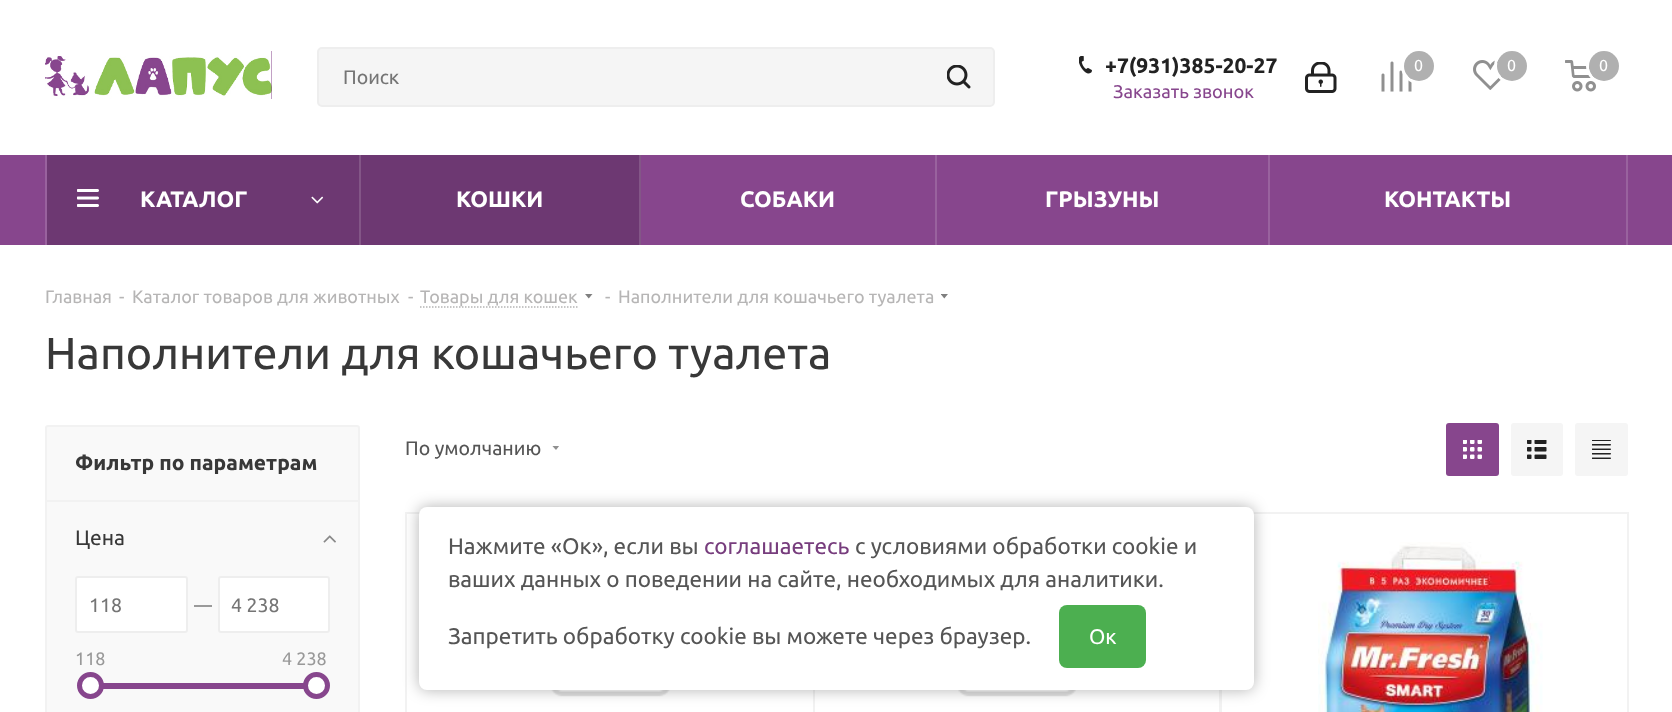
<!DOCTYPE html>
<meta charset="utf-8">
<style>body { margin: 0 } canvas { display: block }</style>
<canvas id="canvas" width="1672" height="712"></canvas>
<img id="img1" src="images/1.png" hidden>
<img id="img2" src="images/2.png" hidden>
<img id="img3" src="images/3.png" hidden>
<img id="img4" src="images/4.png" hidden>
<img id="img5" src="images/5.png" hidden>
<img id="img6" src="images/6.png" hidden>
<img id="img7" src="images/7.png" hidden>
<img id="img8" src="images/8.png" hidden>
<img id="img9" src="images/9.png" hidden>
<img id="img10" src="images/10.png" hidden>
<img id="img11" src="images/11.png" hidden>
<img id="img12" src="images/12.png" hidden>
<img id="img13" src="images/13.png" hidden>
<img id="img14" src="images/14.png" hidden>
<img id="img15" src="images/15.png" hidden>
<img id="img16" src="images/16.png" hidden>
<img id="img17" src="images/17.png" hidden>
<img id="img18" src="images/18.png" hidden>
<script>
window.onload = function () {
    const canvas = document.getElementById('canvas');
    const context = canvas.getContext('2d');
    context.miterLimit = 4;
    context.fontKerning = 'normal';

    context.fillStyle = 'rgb(255, 255, 255)';
    context.fillRect(0, 0, 1672, 712);
    context.fillStyle = 'rgb(133, 67, 139)';
    context.fillRect(271, 51, 1, 48);
    context.drawImage(document.getElementById('img1'), 45, 51, 227, 48);
    context.fillStyle = 'rgb(245, 245, 245)';
    context.beginPath();
    context.roundRect(318, 48, 676, 58, 4);
    context.fill();
    context.strokeStyle = 'rgb(238, 238, 238)';
    context.lineWidth = 2;
    context.stroke();
    context.drawImage(document.getElementById('img2'), 947, 65, 24, 24);
    context.drawImage(document.getElementById('img3'), 1079, 56, 13, 18);
    context.drawImage(document.getElementById('img4'), 1305, 62, 32, 31);
    context.drawImage(document.getElementById('img5'), 1381, 61, 31, 31);
    context.beginPath();
    context.arc(1419, 66, 16.5, 0, 2 * Math.PI);
    context.strokeStyle = 'rgb(255, 255, 255)';
    context.lineWidth = 3;
    context.stroke();
    context.fillStyle = 'rgb(176, 176, 176)';
    context.beginPath();
    context.arc(1419, 66, 15, 0, 2 * Math.PI);
    context.fill();
    context.drawImage(document.getElementById('img6'), 1473, 60, 30, 30);
    context.beginPath();
    context.arc(1512, 66, 16.5, 0, 2 * Math.PI);
    context.stroke();
    context.beginPath();
    context.arc(1512, 66, 15, 0, 2 * Math.PI);
    context.fill();
    context.drawImage(document.getElementById('img7'), 1565, 60, 31, 32);
    context.beginPath();
    context.arc(1604, 66, 16.5, 0, 2 * Math.PI);
    context.stroke();
    context.beginPath();
    context.arc(1604, 66, 15, 0, 2 * Math.PI);
    context.fill();
    context.fillStyle = 'rgb(135, 70, 141)';
    context.fillRect(0, 155, 1672, 90);
    context.fillStyle = 'rgb(153, 98, 158)';
    context.fillRect(45, 155, 2, 90);
    context.fillStyle = 'rgb(109, 56, 114)';
    context.fillRect(47, 155, 592, 90);
    context.fillStyle = 'rgb(131, 86, 135)';
    context.fillRect(359, 155, 2, 90);
    context.drawImage(document.getElementById('img8'), 77, 189, 22, 18);
    context.drawImage(document.getElementById('img9'), 311, 196, 13, 8);
    context.fillRect(639, 155, 2, 90);
    context.fillStyle = 'rgb(153, 98, 158)';
    context.fillRect(935, 155, 2, 90);
    context.fillRect(1268, 155, 2, 90);
    context.fillRect(1626, 155, 2, 90);
    context.beginPath();
    context.moveTo(420, 307);
    context.lineTo(579, 307);
    context.strokeStyle = 'rgb(180, 180, 180)';
    context.lineWidth = 1.5;
    context.setLineDash([1.5, 1.5]);
    context.stroke();
    context.drawImage(document.getElementById('img10'), 585, 294, 8, 5);
    context.drawImage(document.getElementById('img11'), 941, 294, 7, 5);
    context.save();
    context.beginPath();
    context.rect(552, 446, 8, 5);
    context.clip();
    context.fillStyle = 'rgb(144, 144, 144)';
    context.beginPath();
    context.moveTo(552, 445.5);
    context.lineTo(559.5, 445.5);
    context.lineTo(556, 450);
    context.closePath();
    context.fill('evenodd');
    context.restore();
    context.fillStyle = 'rgb(135, 70, 141)';
    context.beginPath();
    context.roundRect(1446, 423, 53, 53, 3);
    context.fill();
    context.drawImage(document.getElementById('img12'), 1463, 440, 19, 19);
    context.fillStyle = 'rgb(245, 245, 245)';
    context.beginPath();
    context.roundRect(1511, 423, 52, 53, 3);
    context.fill();
    context.drawImage(document.getElementById('img13'), 1527, 440, 20, 19);
    context.beginPath();
    context.roundRect(1575, 423, 53, 53, 3);
    context.fill();
    context.drawImage(document.getElementById('img14'), 1592, 440, 19, 19);
    context.strokeStyle = 'rgb(242, 242, 242)';
    context.lineWidth = 2;
    context.setLineDash([]);
    context.strokeRect(406, 513, 408, 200);
    context.drawImage(document.getElementById('img15'), 551, 690, 119, 7);
    context.strokeRect(814, 513, 406, 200);
    context.drawImage(document.getElementById('img16'), 958, 690, 118, 7);
    context.strokeRect(1221, 513, 407, 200);
    context.drawImage(document.getElementById('img17'), 1318, 542, 225, 170);
    context.fillStyle = 'rgb(249, 249, 249)';
    context.beginPath();
    context.roundRect(46, 426, 313, 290, 2);
    context.fill();
    context.stroke();
    context.fillStyle = 'rgb(242, 242, 242)';
    context.fillRect(47, 500, 312, 2);
    context.drawImage(document.getElementById('img18'), 323, 535, 13, 8);
    context.fillStyle = 'rgb(255, 255, 255)';
    context.beginPath();
    context.roundRect(76, 577, 111, 55, 2);
    context.fill();
    context.strokeStyle = 'rgb(238, 238, 238)';
    context.stroke();
    context.fillStyle = 'rgb(154, 154, 154)';
    context.fillRect(194, 605, 18, 2);
    context.fillStyle = 'rgb(255, 255, 255)';
    context.beginPath();
    context.roundRect(219, 577, 110, 55, 2);
    context.fill();
    context.stroke();
    context.fillStyle = 'rgb(135, 70, 141)';
    context.fillRect(103, 683, 201, 6);
    context.fillStyle = 'rgb(255, 255, 255)';
    context.beginPath();
    context.arc(90.5, 685.5, 11, 0, 2 * Math.PI);
    context.fill();
    context.strokeStyle = 'rgb(135, 70, 141)';
    context.lineWidth = 5;
    context.stroke();
    context.beginPath();
    context.arc(316.5, 685.5, 11, 0, 2 * Math.PI);
    context.fill();
    context.stroke();
    context.fillStyle = 'rgba(0, 0, 0, 0.3)';
    context.filter = 'blur(7.5px)';
    context.beginPath();
    context.roundRect(419, 507, 835, 183, 8);
    context.fill();
    context.filter = 'none';
    context.fillStyle = 'rgb(255, 255, 255)';
    context.beginPath();
    context.roundRect(419, 507, 835, 183, 8);
    context.fill();
    context.fillStyle = 'rgb(76, 175, 80)';
    context.beginPath();
    context.roundRect(1059, 605, 87, 63, 8);
    context.fill();
    context.font = '19.5px Ubuntu';
    context.fillStyle = 'rgb(117, 117, 117)';
    context.fillText('Поиск', 343, 84);
    context.font = 'bold 21px Ubuntu';
    context.fillStyle = 'rgb(34, 34, 34)';
    context.fillText('+7(931)385-20-27', 1105, 73);
    context.font = '18.25px Ubuntu';
    context.fillStyle = 'rgb(135, 70, 141)';
    context.fillText('Заказать звонок', 1113, 98);
    context.font = '16px Ubuntu';
    context.fillStyle = 'rgb(255, 255, 255)';
    context.fillText('0', 1414, 71);
    context.fillText('0', 1507, 71);
    context.fillText('0', 1599, 71);
    context.font = 'bold 22.5px Ubuntu';
    context.fillText('КАТАЛОГ', 140, 207);
    context.fillText('КОШКИ', 456, 207);
    context.fillText('СОБАКИ', 740, 207);
    context.fillText('ГРЫЗУНЫ', 1045, 207);
    context.fillText('КОНТАКТЫ', 1384, 207);
    context.font = '18px Ubuntu';
    context.fillStyle = 'rgb(182, 181, 181)';
    context.fillText('Главная', 45, 303);
    context.fillText('-', 119, 303);
    context.fillText('Каталог товаров для животных', 132, 303);
    context.fillText('-', 408, 303);
    context.fillText('Товары для кошек', 420, 303);
    context.fillText('-', 605, 303);
    context.fillText('Наполнители для кошачьего туалета', 618, 303);
    context.font = '44.75px Ubuntu';
    context.fillStyle = 'rgb(56, 56, 56)';
    context.fillText('Наполнители для кошачьего туалета', 45, 369);
    context.font = '19.5px Ubuntu';
    context.fillStyle = 'rgb(85, 85, 85)';
    context.fillText('По умолчанию', 405, 455);
    context.font = 'bold 21px Ubuntu';
    context.fillStyle = 'rgb(56, 56, 56)';
    context.fillText('Фильтр по параметрам', 75, 470);
    context.font = '21px Ubuntu';
    context.fillText('Цена', 75, 545);
    context.font = '19.5px Ubuntu';
    context.fillStyle = 'rgb(117, 117, 117)';
    context.fillText('118', 89, 612);
    context.fillText('4 238', 231, 612);
    context.font = '18px Ubuntu';
    context.fillStyle = 'rgb(153, 153, 153)';
    context.fillText('118', 75, 665);
    context.fillText('4 238', 282, 665);
    context.font = '22.5px Ubuntu';
    context.fillStyle = 'rgb(85, 85, 85)';
    context.fillText('Нажмите «Ок», если вы', 448, 554);
    context.fillStyle = 'rgb(119, 61, 125)';
    context.fillText('соглашаетесь', 704, 554);
    context.fillStyle = 'rgb(85, 85, 85)';
    context.fillText('с условиями обработки cookie и', 855, 554);
    context.fillText('ваших данных о поведении на сайте, необходимых для аналитики.', 448, 587);
    context.fillText('Запретить обработку cookie вы можете через браузер.', 448, 644);
    context.font = '21px Ubuntu';
    context.fillStyle = 'rgb(255, 255, 255)';
    context.fillText('Ок', 1089, 644);
};
</script>
